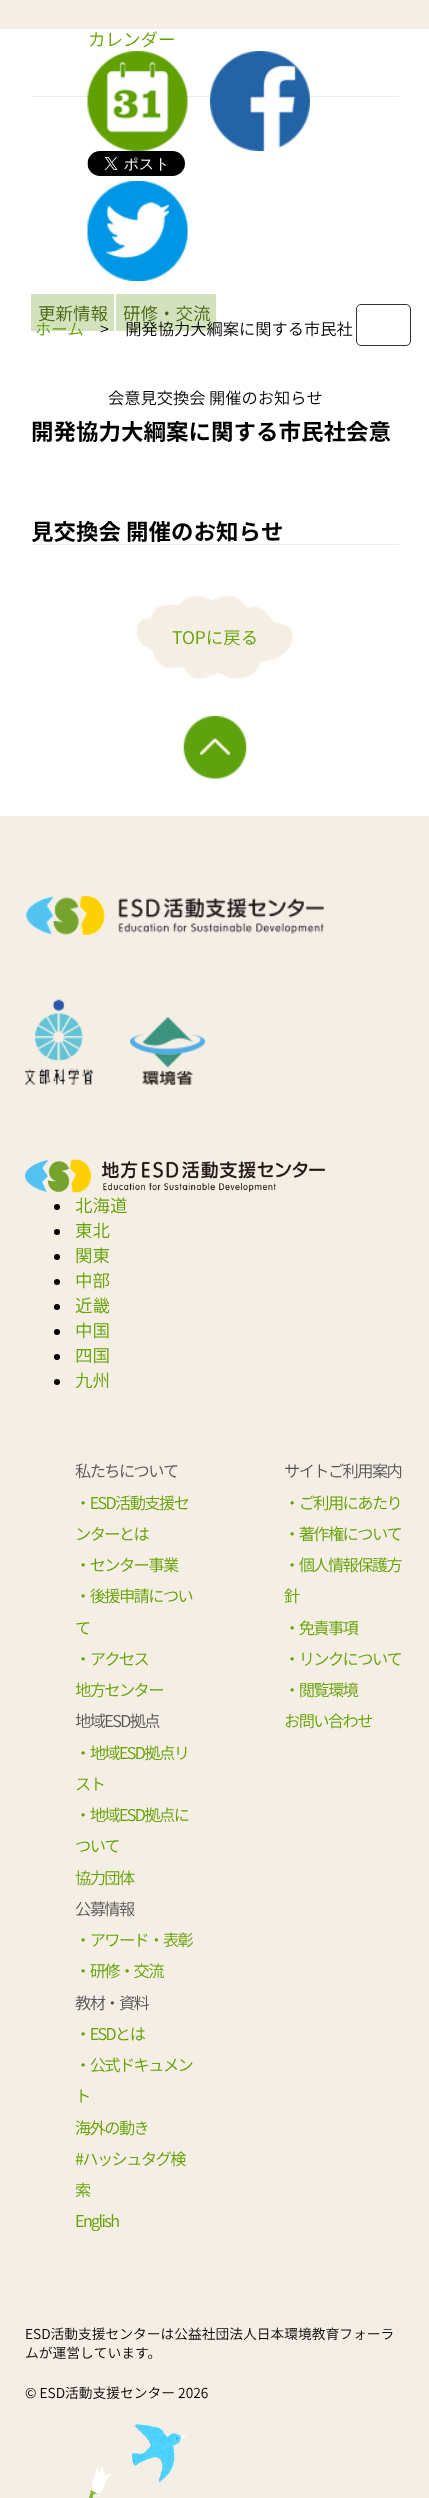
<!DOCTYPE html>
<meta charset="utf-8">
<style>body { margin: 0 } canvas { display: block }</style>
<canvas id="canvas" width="429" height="2498"></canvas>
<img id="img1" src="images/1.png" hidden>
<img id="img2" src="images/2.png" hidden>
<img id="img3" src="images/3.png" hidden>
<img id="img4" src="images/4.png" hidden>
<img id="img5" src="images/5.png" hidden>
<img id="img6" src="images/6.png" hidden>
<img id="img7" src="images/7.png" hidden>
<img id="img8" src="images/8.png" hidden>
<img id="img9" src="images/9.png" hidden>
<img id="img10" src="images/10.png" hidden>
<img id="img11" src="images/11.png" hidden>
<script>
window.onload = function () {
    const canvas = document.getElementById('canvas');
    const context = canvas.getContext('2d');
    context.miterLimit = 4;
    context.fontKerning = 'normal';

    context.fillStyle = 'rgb(255, 255, 255)';
    context.fillRect(0, 0, 429, 2498);
    context.fillStyle = 'rgb(245, 238, 228)';
    context.fillRect(0, 0, 429, 29);
    context.beginPath();
    context.roundRect(356.5, 304.5, 54, 41, 4.5);
    context.strokeStyle = 'rgb(51, 51, 51)';
    context.stroke();
    context.fillStyle = 'rgb(237, 237, 237)';
    context.fillRect(31, 96, 368, 1);
    context.drawImage(document.getElementById('img1'), 87, 51, 101, 100);
    context.drawImage(document.getElementById('img2'), 210, 51, 100, 100);
    context.drawImage(document.getElementById('img3'), 87, 151, 98, 25);
    context.drawImage(document.getElementById('img4'), 87, 181, 101, 100);
    context.fillStyle = 'rgb(211, 225, 189)';
    context.fillRect(31, 294, 83, 37);
    context.fillRect(116, 294, 100, 37);
    context.fillStyle = 'rgb(237, 237, 237)';
    context.fillRect(31, 544, 368, 1);
    context.drawImage(document.getElementById('img5'), 136, 595, 158, 84);
    context.drawImage(document.getElementById('img6'), 183, 716, 64, 63);
    context.fillStyle = 'rgb(245, 238, 228)';
    context.fillRect(0, 816, 429, 1682);
    context.drawImage(document.getElementById('img7'), 26, 895, 298, 40);
    context.drawImage(document.getElementById('img8'), 25, 999, 68, 86);
    context.drawImage(document.getElementById('img9'), 130, 1017, 75, 68);
    context.drawImage(document.getElementById('img10'), 25, 1159, 300, 34);
    context.fillStyle = 'rgb(0, 0, 0)';
    context.beginPath();
    context.arc(57, 1207, 3, 0, 2 * Math.PI);
    context.fill();
    context.beginPath();
    context.arc(57, 1232, 3, 0, 2 * Math.PI);
    context.fill();
    context.beginPath();
    context.arc(57, 1257, 3, 0, 2 * Math.PI);
    context.fill();
    context.beginPath();
    context.arc(57, 1282, 3, 0, 2 * Math.PI);
    context.fill();
    context.beginPath();
    context.arc(57, 1307, 3, 0, 2 * Math.PI);
    context.fill();
    context.beginPath();
    context.arc(57, 1332, 3, 0, 2 * Math.PI);
    context.fill();
    context.beginPath();
    context.arc(57, 1357, 3, 0, 2 * Math.PI);
    context.fill();
    context.beginPath();
    context.arc(57, 1382, 3, 0, 2 * Math.PI);
    context.fill();
    context.drawImage(document.getElementById('img11'), 89, 2415, 109, 83);
    context.font = '300 17.5px Noto Sans JP';
    context.fillStyle = 'rgb(97, 161, 0)';
    context.fillText('カレンダー', 88, 46);
    context.fillStyle = 'rgb(67, 101, 16)';
    context.fillText('更新情報', 38, 320);
    context.fillText('研修・交流', 123, 320);
    context.font = '300 16.25px Noto Sans JP';
    context.fillStyle = 'rgb(97, 161, 0)';
    context.fillText('ホーム', 35, 335);
    context.fillStyle = 'rgb(0, 0, 0)';
    context.fillText('>　開発協力大綱案に関する市民社', 100, 335);
    context.fillText('会意見交換会 開催のお知らせ', 108, 404);
    context.font = 'bold 22.5px Noto Sans JP';
    context.fillText('開発協力大綱案に関する市民社会意', 31, 440);
    context.fillText('見交換会 開催のお知らせ', 31, 540);
    context.font = '300 17.5px Noto Sans JP';
    context.fillStyle = 'rgb(97, 161, 0)';
    context.fillText('TOPに戻る', 172, 644);
    context.fillText('北海道', 75, 1212);
    context.fillText('東北', 75, 1237);
    context.fillText('関東', 75, 1262);
    context.fillText('中部', 75, 1287);
    context.fillText('近畿', 75, 1312);
    context.fillText('中国', 75, 1337);
    context.fillText('四国', 75, 1362);
    context.fillText('九州', 75, 1387);
    context.letterSpacing = '-1.6px';
    context.font = '300 16.25px Noto Sans JP';
    context.fillStyle = 'rgb(85, 85, 85)';
    context.fillText('私たちについて', 75, 1477);
    context.fillStyle = 'rgb(97, 161, 0)';
    context.fillText('・ESD活動支援セ', 75, 1509);
    context.fillText('ンターとは', 75, 1540);
    context.fillText('・センター事業', 75, 1571);
    context.fillText('・後援申請につい', 75, 1602);
    context.fillText('て', 75, 1634);
    context.fillText('・アクセス', 75, 1665);
    context.fillText('地方センター', 75, 1696);
    context.fillStyle = 'rgb(85, 85, 85)';
    context.fillText('地域ESD拠点', 75, 1727);
    context.fillStyle = 'rgb(97, 161, 0)';
    context.fillText('・地域ESD拠点リ', 75, 1759);
    context.fillText('スト', 75, 1790);
    context.fillText('・地域ESD拠点に', 75, 1821);
    context.fillText('ついて', 75, 1852);
    context.fillText('協力団体', 75, 1884);
    context.fillStyle = 'rgb(85, 85, 85)';
    context.fillText('公募情報', 75, 1915);
    context.fillStyle = 'rgb(97, 161, 0)';
    context.fillText('・アワード・表彰', 75, 1946);
    context.fillText('・研修・交流', 75, 1977);
    context.fillStyle = 'rgb(85, 85, 85)';
    context.fillText('教材・資料', 75, 2009);
    context.fillStyle = 'rgb(97, 161, 0)';
    context.fillText('・ESDとは', 75, 2040);
    context.fillText('・公式ドキュメン', 75, 2071);
    context.fillText('ト', 75, 2102);
    context.fillText('海外の動き', 75, 2134);
    context.fillText('#ハッシュタグ検', 75, 2165);
    context.fillText('索', 75, 2196);
    context.fillText('English', 75, 2227);
    context.fillStyle = 'rgb(85, 85, 85)';
    context.fillText('サイトご利用案内', 284, 1477);
    context.fillStyle = 'rgb(97, 161, 0)';
    context.fillText('・ご利用にあたり', 284, 1509);
    context.fillText('・著作権について', 284, 1540);
    context.fillText('・個人情報保護方', 284, 1571);
    context.fillText('針', 284, 1602);
    context.fillText('・免責事項', 284, 1634);
    context.fillText('・リンクについて', 284, 1665);
    context.fillText('・閲覧環境', 284, 1696);
    context.fillText('お問い合わせ', 284, 1727);
    context.letterSpacing = '0px';
    context.font = '300 13.75px Noto Sans JP';
    context.fillStyle = 'rgb(0, 0, 0)';
    context.fillText('ESD活動支援センターは公益社団法人日本環境教育フォーラ', 25, 2339);
    context.fillText('ムが運営しています。', 25, 2358);
    context.fillText('© ESD活動支援センター 2026', 25, 2398);
};
</script>
